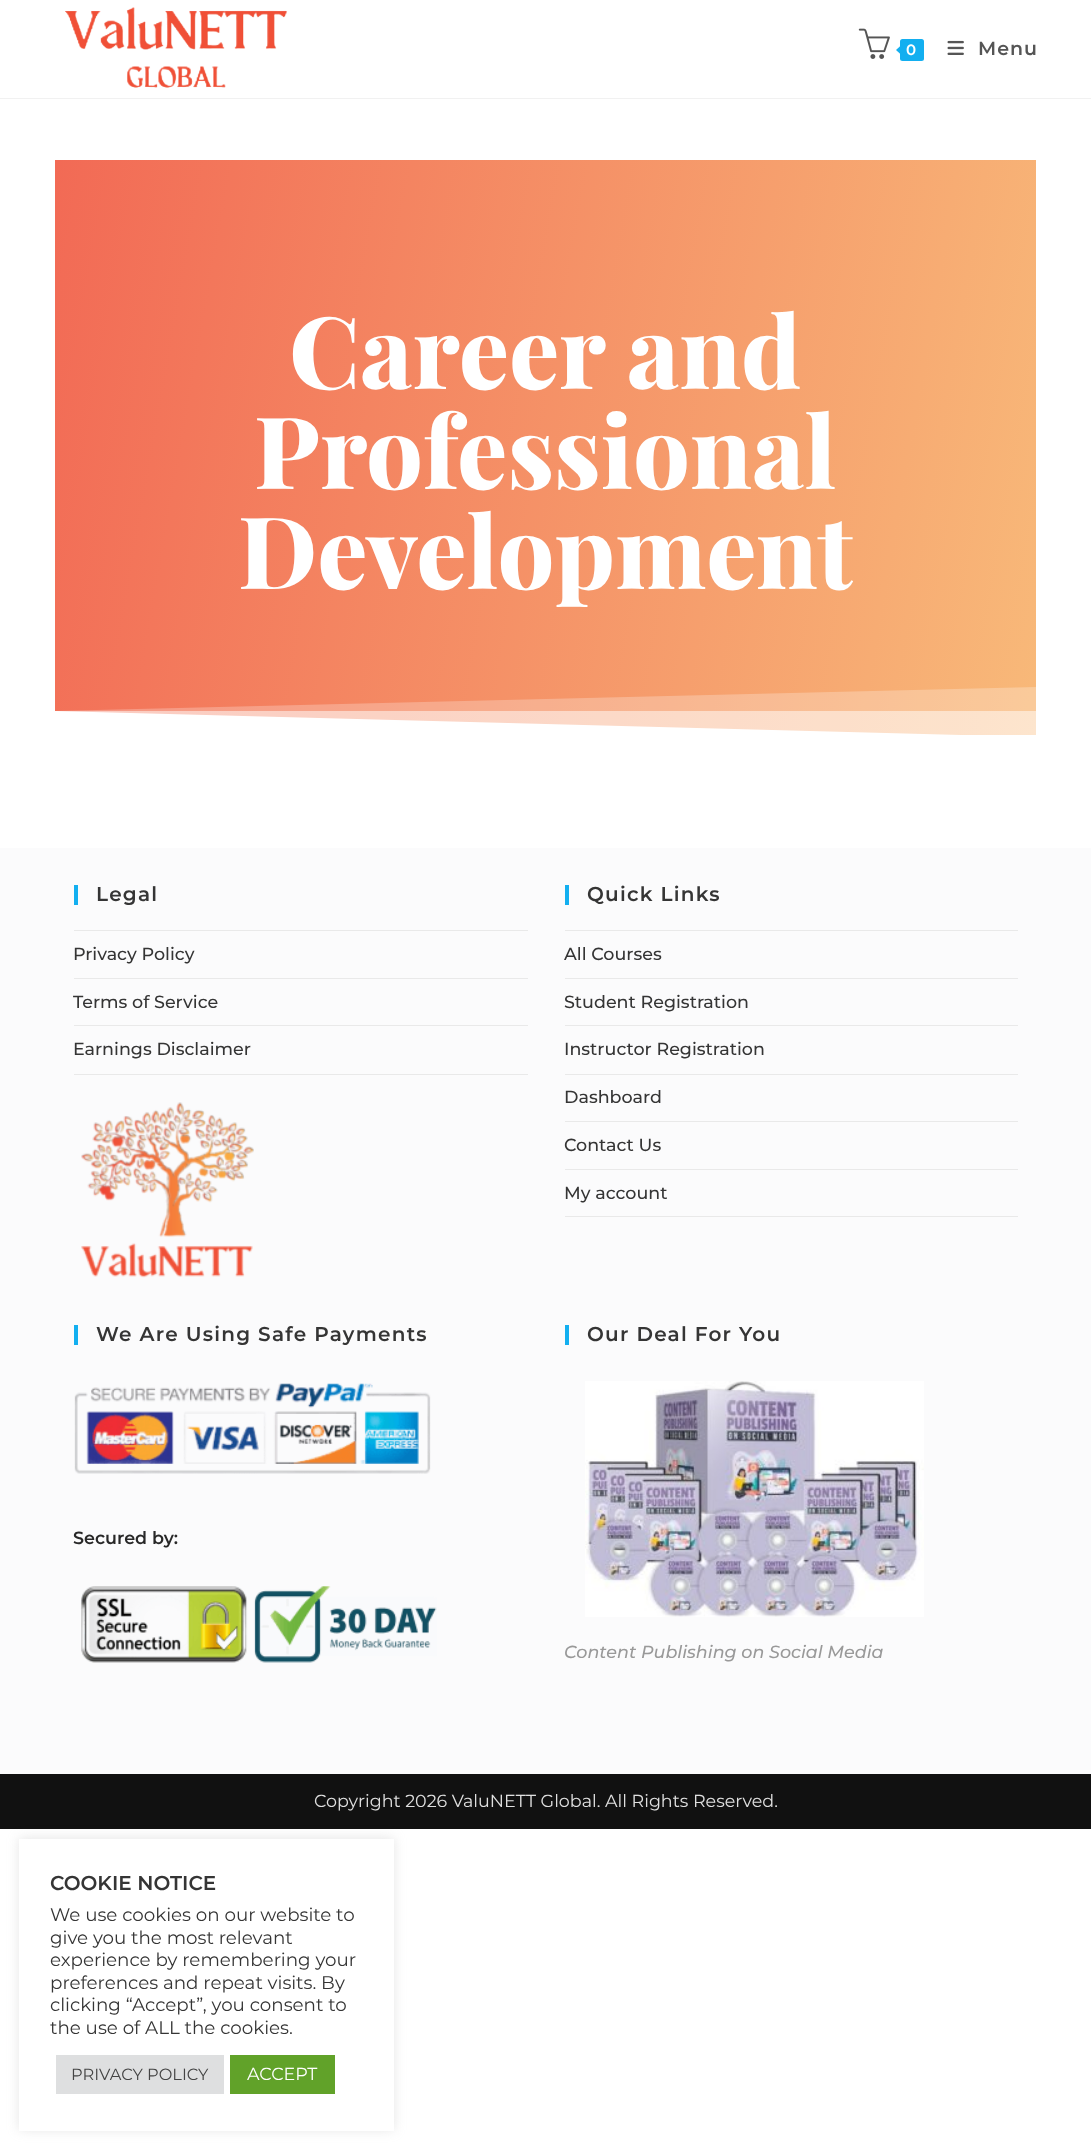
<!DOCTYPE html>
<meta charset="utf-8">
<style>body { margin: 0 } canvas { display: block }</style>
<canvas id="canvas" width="1091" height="2149"></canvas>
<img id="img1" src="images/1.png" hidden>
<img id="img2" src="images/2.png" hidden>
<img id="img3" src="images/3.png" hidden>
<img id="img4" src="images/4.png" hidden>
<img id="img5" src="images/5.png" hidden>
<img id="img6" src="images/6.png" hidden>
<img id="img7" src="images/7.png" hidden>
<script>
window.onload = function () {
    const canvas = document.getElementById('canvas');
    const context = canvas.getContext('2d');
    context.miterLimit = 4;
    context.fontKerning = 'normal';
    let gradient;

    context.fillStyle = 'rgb(255, 255, 255)';
    context.fillRect(0, 0, 1091, 2149);
    context.fillStyle = 'rgb(241, 241, 241)';
    context.fillRect(0, 98, 1091, 1);
    context.drawImage(document.getElementById('img1'), 65, 7, 223, 81);
    context.drawImage(document.getElementById('img2'), 858, 28, 32, 31);
    context.fillStyle = 'rgb(19, 175, 240)';
    context.beginPath();
    context.roundRect(900, 39, 24, 22, 2.5);
    context.fill();
    context.beginPath();
    context.moveTo(902.5, 44);
    context.lineTo(902.5, 56);
    context.lineTo(896, 50);
    context.closePath();
    context.fill();
    context.drawImage(document.getElementById('img3'), 947, 40, 17, 15);
    gradient = context.createLinearGradient(1071, 540, 21, 355);
    gradient.addColorStop(0, 'rgb(248, 185, 121)');
    gradient.addColorStop(1, 'rgb(242, 106, 85)');
    context.fillStyle = gradient;
    context.fillRect(55, 160, 981, 551);
    gradient = context.createLinearGradient(1071, 540, 21, 355);
    gradient.addColorStop(0, 'rgb(252, 220, 188)');
    gradient.addColorStop(1, 'rgb(249, 181, 170)');
    context.fillStyle = gradient;
    context.fillRect(55, 711, 981, 24);
    context.save();
    context.beginPath();
    context.rect(55, 686, 981, 50);
    context.clip();
    context.fillStyle = 'rgb(255, 255, 255)';
    context.beginPath();
    context.moveTo(1037, 737);
    context.lineTo(53, 737);
    context.lineTo(53, 711);
    context.closePath();
    context.fill();
    context.fillStyle = 'rgba(255, 255, 255, 0.25)';
    context.beginPath();
    context.moveTo(53, 737);
    context.lineTo(1037, 737);
    context.lineTo(1037, 687);
    context.lineTo(53, 711);
    context.closePath();
    context.fill();
    context.restore();
    context.fillStyle = 'rgb(251, 251, 252)';
    context.fillRect(0, 848, 1091, 926);
    context.fillStyle = 'rgb(19, 175, 240)';
    context.fillRect(74, 885, 4, 20);
    context.fillStyle = 'rgb(233, 233, 233)';
    context.fillRect(74, 930, 454, 1);
    context.fillRect(74, 978, 454, 1);
    context.fillRect(74, 1025, 454, 1);
    context.fillRect(74, 1074, 454, 1);
    context.drawImage(document.getElementById('img4'), 81, 1102, 173, 176);
    context.fillStyle = 'rgb(19, 175, 240)';
    context.fillRect(565, 885, 4, 20);
    context.fillStyle = 'rgb(233, 233, 233)';
    context.fillRect(565, 930, 453, 1);
    context.fillRect(565, 978, 453, 1);
    context.fillRect(565, 1025, 453, 1);
    context.fillRect(565, 1074, 453, 1);
    context.fillRect(565, 1121, 453, 1);
    context.fillRect(565, 1169, 453, 1);
    context.fillRect(565, 1216, 453, 1);
    context.fillStyle = 'rgb(19, 175, 240)';
    context.fillRect(74, 1325, 4, 20);
    context.drawImage(document.getElementById('img5'), 74, 1383, 357, 91);
    context.drawImage(document.getElementById('img6'), 81, 1586, 356, 77);
    context.fillRect(565, 1325, 4, 20);
    context.drawImage(document.getElementById('img7'), 585, 1381, 339, 236);
    context.fillStyle = 'rgb(17, 17, 17)';
    context.fillRect(0, 1774, 1091, 55);
    context.fillStyle = 'rgba(172, 171, 171, 0.3)';
    context.filter = 'blur(6px)';
    context.beginPath();
    context.rect(19, 1838, 375, 292);
    context.fill();
    context.filter = 'none';
    context.fillStyle = 'rgb(255, 255, 255)';
    context.fillRect(19, 1839, 375, 292);
    context.fillStyle = 'rgb(222, 223, 224)';
    context.fillRect(56, 2055, 168, 39);
    context.fillStyle = 'rgb(97, 162, 41)';
    context.fillRect(230, 2055, 105, 39);
    context.letterSpacing = '1px';
    context.font = '600 15px Montserrat';
    context.fillStyle = 'rgb(255, 255, 255)';
    context.fillText('0', 906, 55);
    context.font = '600 19px Montserrat';
    context.fillStyle = 'rgb(85, 85, 85)';
    context.fillText('Menu', 978, 55);
    context.letterSpacing = '0px';
    context.font = '800 100px Playfair Display';
    context.fillStyle = 'rgb(255, 255, 255)';
    context.fillText('Career and', 289, 389);
    context.fillText('Professional', 254, 489);
    context.fillText('Development', 238, 589);
    context.letterSpacing = '1.25px';
    context.font = '600 20px Montserrat';
    context.fillStyle = 'rgb(53, 53, 53)';
    context.fillText('Legal', 96, 901);
    context.letterSpacing = '0px';
    context.font = '500 17.5px Montserrat';
    context.fillText('Privacy Policy', 73, 960);
    context.fillText('Terms of Service', 73, 1008);
    context.fillText('Earnings Disclaimer', 73, 1055);
    context.letterSpacing = '1.25px';
    context.font = '600 20px Montserrat';
    context.fillText('Quick Links', 587, 901);
    context.letterSpacing = '0px';
    context.font = '500 17.5px Montserrat';
    context.fillText('All Courses', 564, 960);
    context.fillText('Student Registration', 564, 1008);
    context.fillText('Instructor Registration', 564, 1055);
    context.fillText('Dashboard', 564, 1103);
    context.fillText('Contact Us', 564, 1151);
    context.fillText('My account', 564, 1199);
    context.letterSpacing = '1.25px';
    context.font = '600 20px Montserrat';
    context.fillText('We Are Using Safe Payments', 96, 1341);
    context.letterSpacing = '0px';
    context.font = '600 17.5px Montserrat';
    context.fillStyle = 'rgb(40, 40, 40)';
    context.fillText('Secured by:', 73, 1544);
    context.letterSpacing = '1.25px';
    context.font = '600 20px Montserrat';
    context.fillStyle = 'rgb(53, 53, 53)';
    context.fillText('Our Deal For You', 587, 1341);
    context.letterSpacing = '0px';
    context.font = 'italic 500 17.5px Montserrat';
    context.fillStyle = 'rgb(153, 153, 153)';
    context.fillText('Content Publishing on Social Media', 564, 1658);
    context.font = '17.5px Montserrat';
    context.fillStyle = 'rgb(224, 224, 224)';
    context.fillText('Copyright 2026 ValuNETT Global. All Rights Reserved.', 314, 1807);
    context.font = '600 20px Montserrat';
    context.fillStyle = 'rgb(53, 53, 53)';
    context.fillText('COOKIE NOTICE', 50, 1890);
    context.font = '18.3px Montserrat';
    context.fillText('We use cookies on our website to', 50, 1921);
    context.fillText('give you the most relevant', 50, 1944);
    context.fillText('experience by remembering your', 50, 1966);
    context.fillText('preferences and repeat visits. By', 50, 1989);
    context.fillText('clicking “Accept”, you consent to', 50, 2011);
    context.fillText('the use of ALL the cookies.', 50, 2034);
    context.font = '16.25px Montserrat';
    context.fillStyle = 'rgb(68, 68, 68)';
    context.fillText('PRIVACY POLICY', 71, 2080);
    context.font = '17.5px Montserrat';
    context.fillStyle = 'rgb(255, 255, 255)';
    context.fillText('ACCEPT', 247, 2080);
};
</script>
